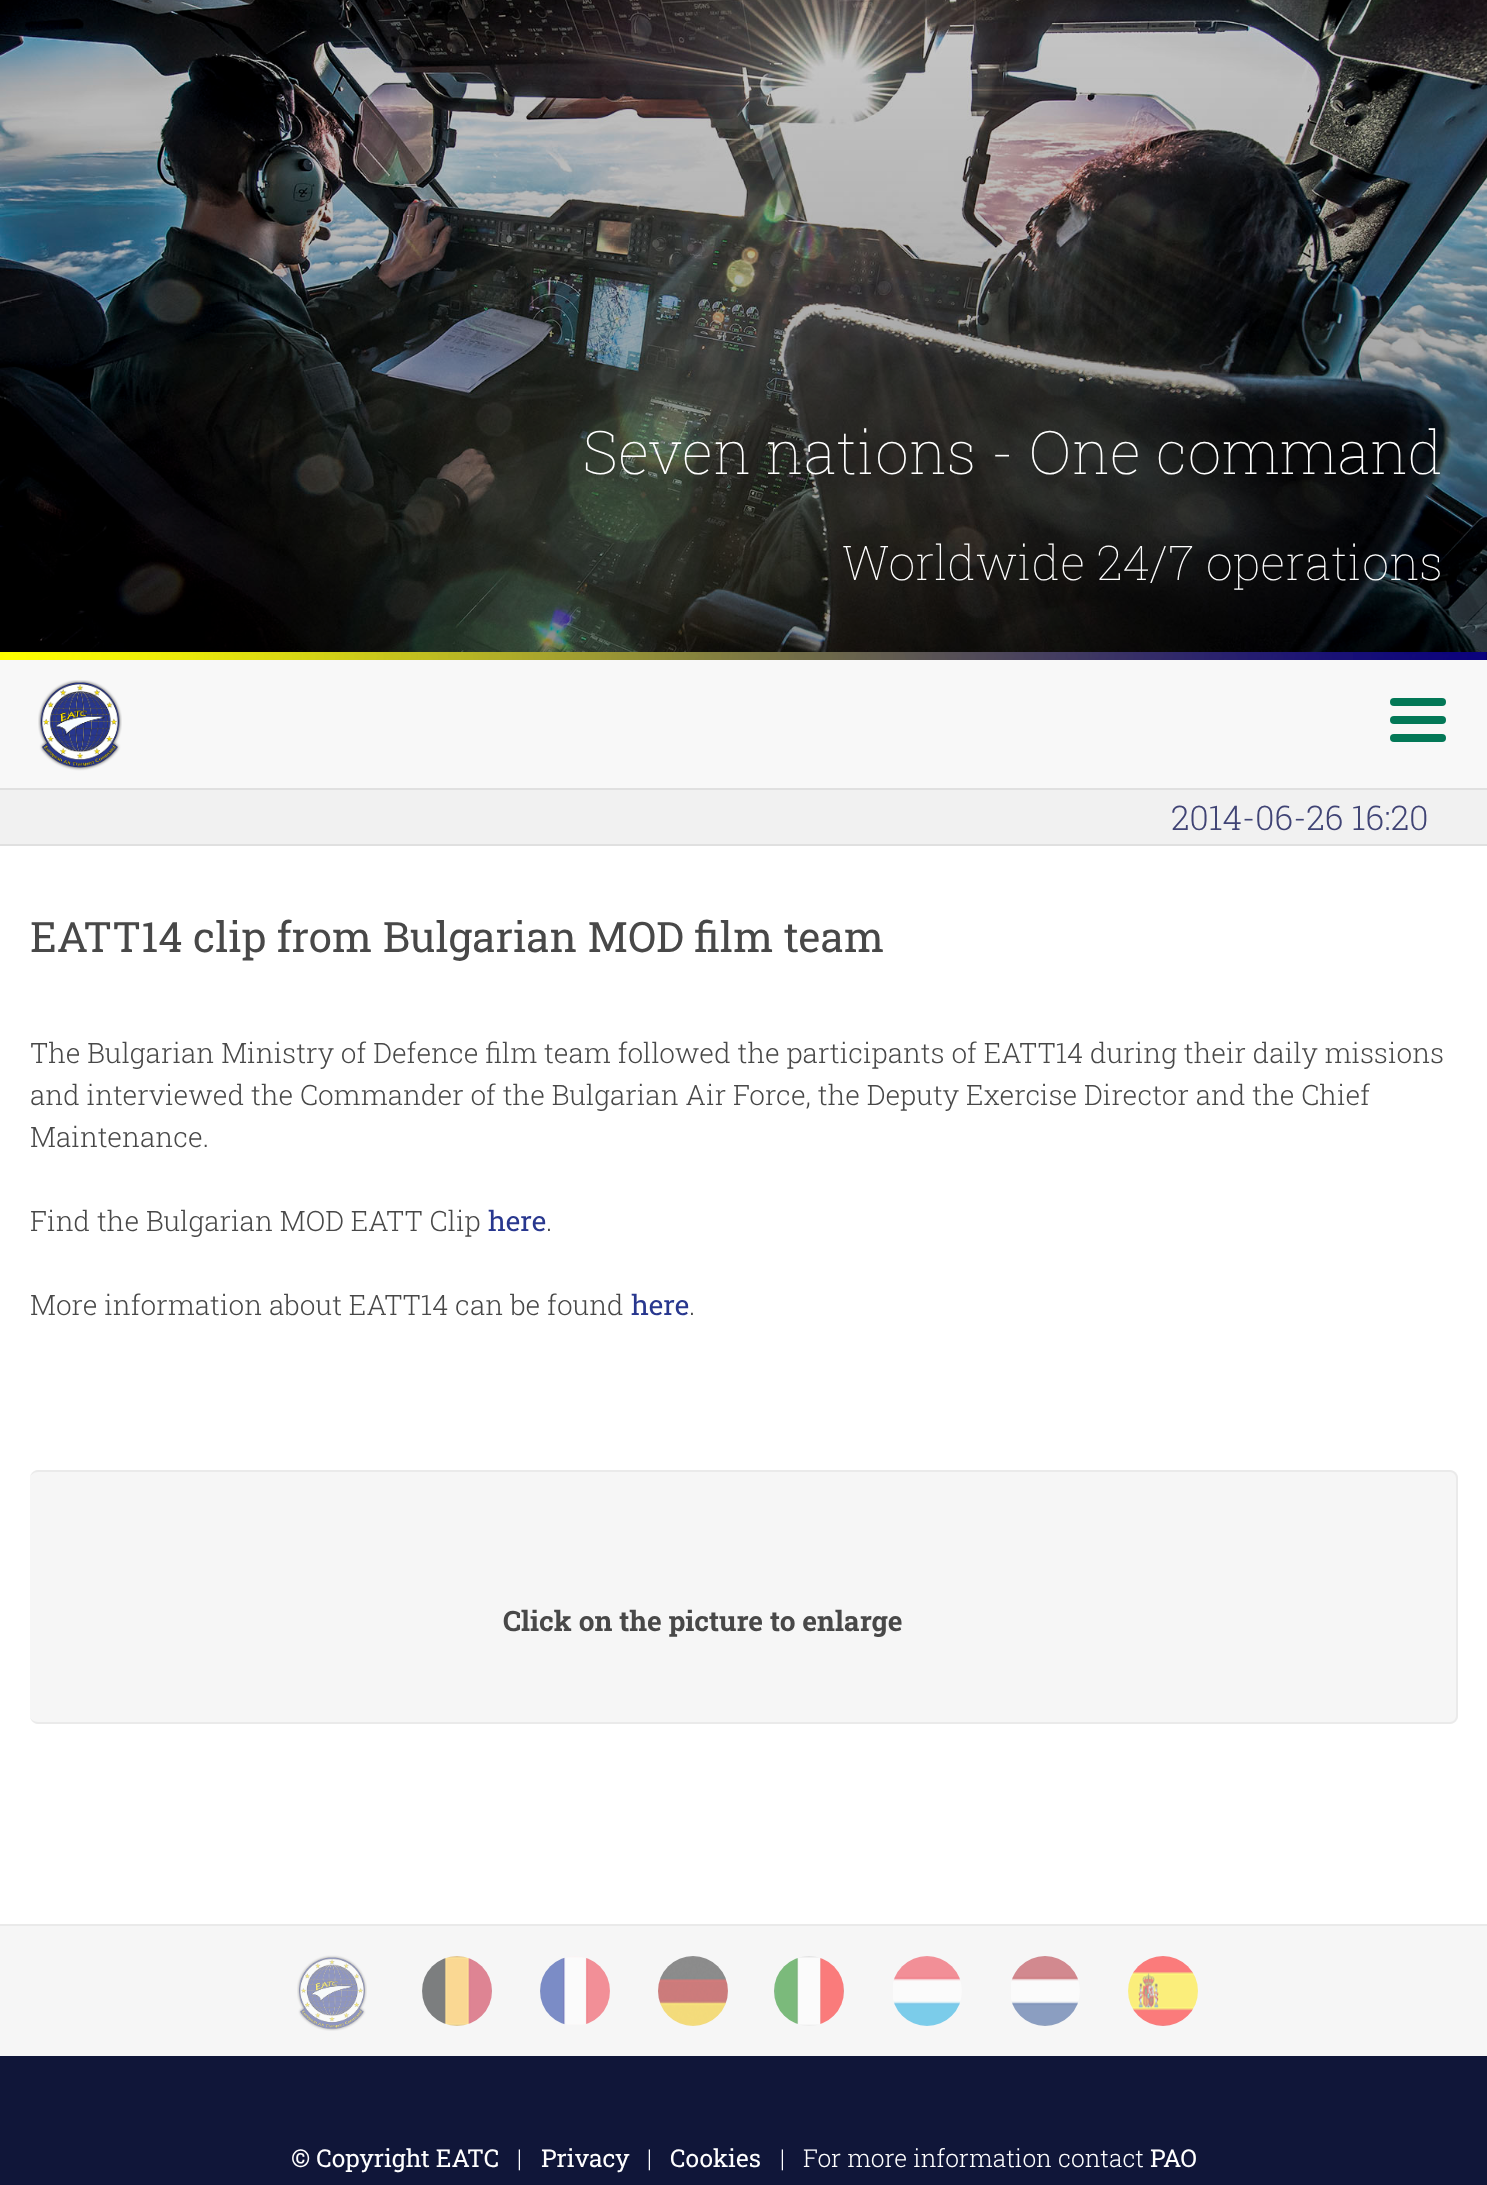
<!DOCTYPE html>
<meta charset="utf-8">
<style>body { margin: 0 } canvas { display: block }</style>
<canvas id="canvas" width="1487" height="2185"></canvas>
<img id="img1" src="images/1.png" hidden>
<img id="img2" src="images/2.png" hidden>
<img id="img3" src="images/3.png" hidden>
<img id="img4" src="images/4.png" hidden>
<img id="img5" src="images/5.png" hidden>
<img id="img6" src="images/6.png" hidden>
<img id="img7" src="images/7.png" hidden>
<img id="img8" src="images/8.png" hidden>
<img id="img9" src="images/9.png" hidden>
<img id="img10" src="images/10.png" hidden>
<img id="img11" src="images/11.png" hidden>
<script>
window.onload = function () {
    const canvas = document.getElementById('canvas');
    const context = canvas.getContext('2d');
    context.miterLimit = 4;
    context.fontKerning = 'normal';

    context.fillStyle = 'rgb(255, 255, 255)';
    context.fillRect(0, 0, 1487, 2185);
    context.drawImage(document.getElementById('img1'), 0, 0, 1487, 652);
    context.drawImage(document.getElementById('img2'), 0, 652, 1487, 8);
    context.fillStyle = 'rgb(248, 248, 248)';
    context.fillRect(0, 660, 1487, 128);
    context.fillStyle = 'rgb(224, 224, 224)';
    context.fillRect(0, 788, 1487, 2);
    context.drawImage(document.getElementById('img3'), 38, 680, 84, 91);
    context.fillStyle = 'rgb(3, 120, 87)';
    context.beginPath();
    context.roundRect(1390, 698, 56, 8, 4);
    context.fill();
    context.beginPath();
    context.roundRect(1390, 716, 56, 8, 4);
    context.fill();
    context.beginPath();
    context.roundRect(1390, 734, 56, 8, 4);
    context.fill();
    context.fillStyle = 'rgb(241, 241, 241)';
    context.fillRect(0, 790, 1487, 54);
    context.fillStyle = 'rgb(224, 224, 224)';
    context.fillRect(0, 844, 1487, 2);
    context.fillStyle = 'rgb(246, 246, 246)';
    context.beginPath();
    context.roundRect(30, 1470, 1428, 254, 8);
    context.fill();
    context.fillStyle = 'rgb(234, 234, 234)';
    context.beginPath();
    context.moveTo(38, 1470);
    context.lineTo(1450, 1470);
    context.bezierCurveTo(1454, 1470, 1458, 1474, 1458, 1478);
    context.lineTo(1458, 1716);
    context.bezierCurveTo(1458, 1720, 1454, 1724, 1450, 1724);
    context.lineTo(38, 1724);
    context.bezierCurveTo(34, 1724, 30, 1720, 30, 1716);
    context.lineTo(30, 1478);
    context.bezierCurveTo(30, 1474, 34, 1470, 38, 1470);
    context.closePath();
    context.moveTo(38, 1472);
    context.lineTo(1450, 1472);
    context.bezierCurveTo(1453, 1472, 1456, 1475, 1456, 1478);
    context.lineTo(1456, 1716);
    context.bezierCurveTo(1456, 1719, 1453, 1722, 1450, 1722);
    context.lineTo(38, 1722);
    context.bezierCurveTo(34, 1722, 30, 1719, 30, 1716);
    context.lineTo(30, 1478);
    context.bezierCurveTo(30, 1475, 34, 1472, 38, 1472);
    context.closePath();
    context.fill('evenodd');
    context.fillStyle = 'rgb(246, 246, 246)';
    context.fillRect(0, 1926, 1487, 130);
    context.fillStyle = 'rgb(234, 234, 234)';
    context.fillRect(0, 1924, 1487, 2);
    context.drawImage(document.getElementById('img4'), 297, 1955, 70, 76);
    context.drawImage(document.getElementById('img5'), 422, 1956, 70, 70);
    context.drawImage(document.getElementById('img6'), 540, 1956, 70, 69);
    context.drawImage(document.getElementById('img7'), 658, 1956, 70, 70);
    context.drawImage(document.getElementById('img8'), 774, 1956, 70, 70);
    context.drawImage(document.getElementById('img9'), 893, 1956, 69, 70);
    context.drawImage(document.getElementById('img10'), 1011, 1956, 69, 70);
    context.drawImage(document.getElementById('img11'), 1128, 1956, 70, 70);
    context.fillStyle = 'rgb(16, 22, 57)';
    context.fillRect(0, 2056, 1487, 129);
    context.font = '100 60px Roboto Slab';
    context.fillStyle = 'rgb(255, 255, 255)';
    context.fillText('Seven nations - One command', 583, 474);
    context.font = '100 48px Roboto Slab';
    context.fillText('Worldwide 24/7 operations', 842, 580);
    context.font = '300 34px Roboto Slab';
    context.fillStyle = 'rgb(64, 68, 117)';
    context.fillText('2014-06-26 16:20', 1171, 830);
    context.font = '42px Roboto Slab';
    context.fillStyle = 'rgb(72, 72, 72)';
    context.fillText('EATT14 clip from Bulgarian MOD film team', 30, 952);
    context.font = '300 28px Roboto Slab';
    context.fillText('The Bulgarian Ministry of Defence film team followed the participants of EATT14 during their daily missions', 30, 1063);
    context.fillText('and interviewed the Commander of the Bulgarian Air Force, the Deputy Exercise Director and the Chief', 30, 1105);
    context.fillText('Maintenance.', 30, 1147);
    context.fillText('Find the Bulgarian MOD EATT Clip', 30, 1231);
    context.font = '28px Roboto Slab';
    context.fillStyle = 'rgb(40, 55, 142)';
    context.fillText('here', 488, 1231);
    context.font = '300 28px Roboto Slab';
    context.fillStyle = 'rgb(72, 72, 72)';
    context.fillText('.', 546, 1231);
    context.fillText('More information about EATT14 can be found', 30, 1315);
    context.font = '28px Roboto Slab';
    context.fillStyle = 'rgb(40, 55, 142)';
    context.fillText('here', 631, 1315);
    context.font = '300 28px Roboto Slab';
    context.fillStyle = 'rgb(72, 72, 72)';
    context.fillText('.', 689, 1315);
    context.font = 'bold 28px Roboto Slab';
    context.fillText('Click on the picture to enlarge', 503, 1631);
    context.font = '24.6px Roboto Slab';
    context.fillStyle = 'rgb(255, 255, 255)';
    context.fillText('© Copyright EATC', 291, 2167);
    context.font = '300 24.6px Roboto Slab';
    context.fillText('|', 517, 2167);
    context.font = '24.6px Roboto Slab';
    context.fillText('Privacy', 541, 2167);
    context.font = '300 24.6px Roboto Slab';
    context.fillText('|', 647, 2167);
    context.font = '24.6px Roboto Slab';
    context.fillText('Cookies', 670, 2167);
    context.font = '300 24.6px Roboto Slab';
    context.fillText('|', 780, 2167);
    context.fillText('For more information contact', 803, 2167);
    context.font = '24.6px Roboto Slab';
    context.fillText('PAO', 1150, 2167);
};
</script>
